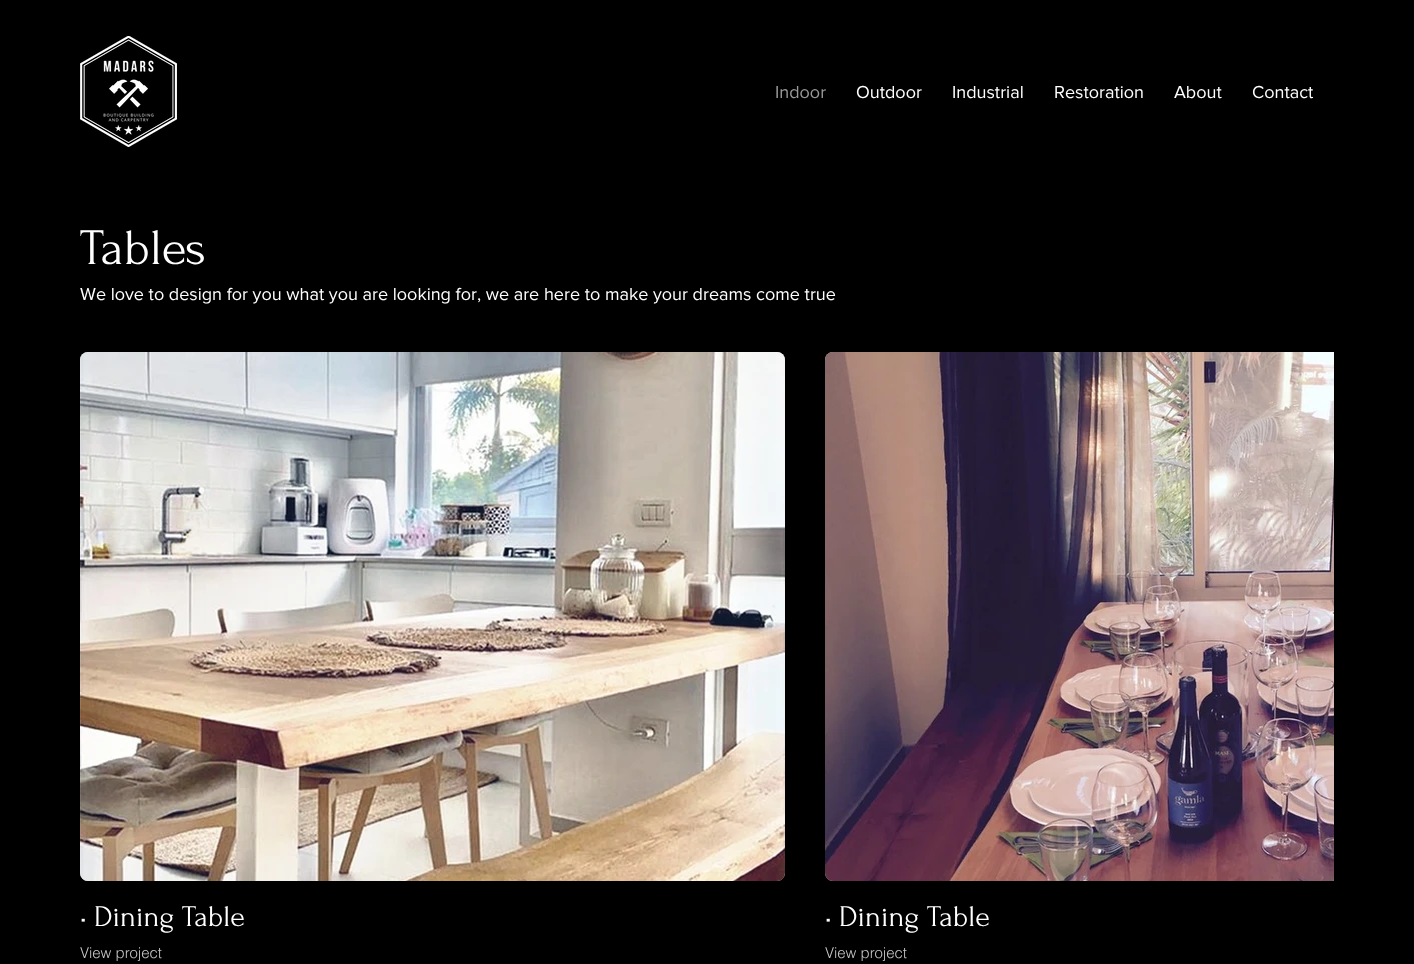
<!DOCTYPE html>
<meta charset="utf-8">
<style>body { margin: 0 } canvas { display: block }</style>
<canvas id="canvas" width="1414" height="964"></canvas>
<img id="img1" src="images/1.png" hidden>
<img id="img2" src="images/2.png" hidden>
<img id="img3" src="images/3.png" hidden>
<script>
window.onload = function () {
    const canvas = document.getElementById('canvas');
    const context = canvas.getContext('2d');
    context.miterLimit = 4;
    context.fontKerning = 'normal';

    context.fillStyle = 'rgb(0, 0, 0)';
    context.fillRect(0, 0, 1414, 964);
    context.drawImage(document.getElementById('img1'), 80, 36, 97, 111);
    context.fillStyle = 'rgb(199, 199, 199)';
    context.beginPath();
    context.roundRect(80, 352, 705, 529, 8);
    context.fill();
    context.drawImage(document.getElementById('img2'), 80, 352, 705, 529);
    context.beginPath();
    context.roundRect(825, 352, 509, 529, [8, 0, 0, 8]);
    context.fill();
    context.drawImage(document.getElementById('img3'), 825, 352, 509, 529);
    context.font = '18px "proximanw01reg"';
    context.fillStyle = 'rgb(153, 153, 151)';
    context.fillText('Indoor', 775, 98);
    context.fillStyle = 'rgb(255, 255, 255)';
    context.fillText('Outdoor', 856, 98);
    context.fillText('Industrial', 952, 98);
    context.fillText('Restoration', 1054, 98);
    context.fillText('About', 1174, 98);
    context.fillText('Contact', 1252, 98);
    context.font = '51px Forum';
    context.fillText('Tables', 80, 264);
    context.font = '18px "proximanw01reg"';
    context.fillText('We love to design for you what you are looking for, we are here to make your dreams come true', 80, 300);
    context.font = '30px Forum';
    context.fillText('• Dining Table', 80, 926);
    context.font = '300 15px helvetica';
    context.fillStyle = 'rgb(199, 199, 199)';
    context.fillText('View project', 80, 958);
    context.font = '30px Forum';
    context.fillStyle = 'rgb(255, 255, 255)';
    context.fillText('• Dining Table', 825, 926);
    context.font = '300 15px helvetica';
    context.fillStyle = 'rgb(199, 199, 199)';
    context.fillText('View project', 825, 958);
};
</script>
